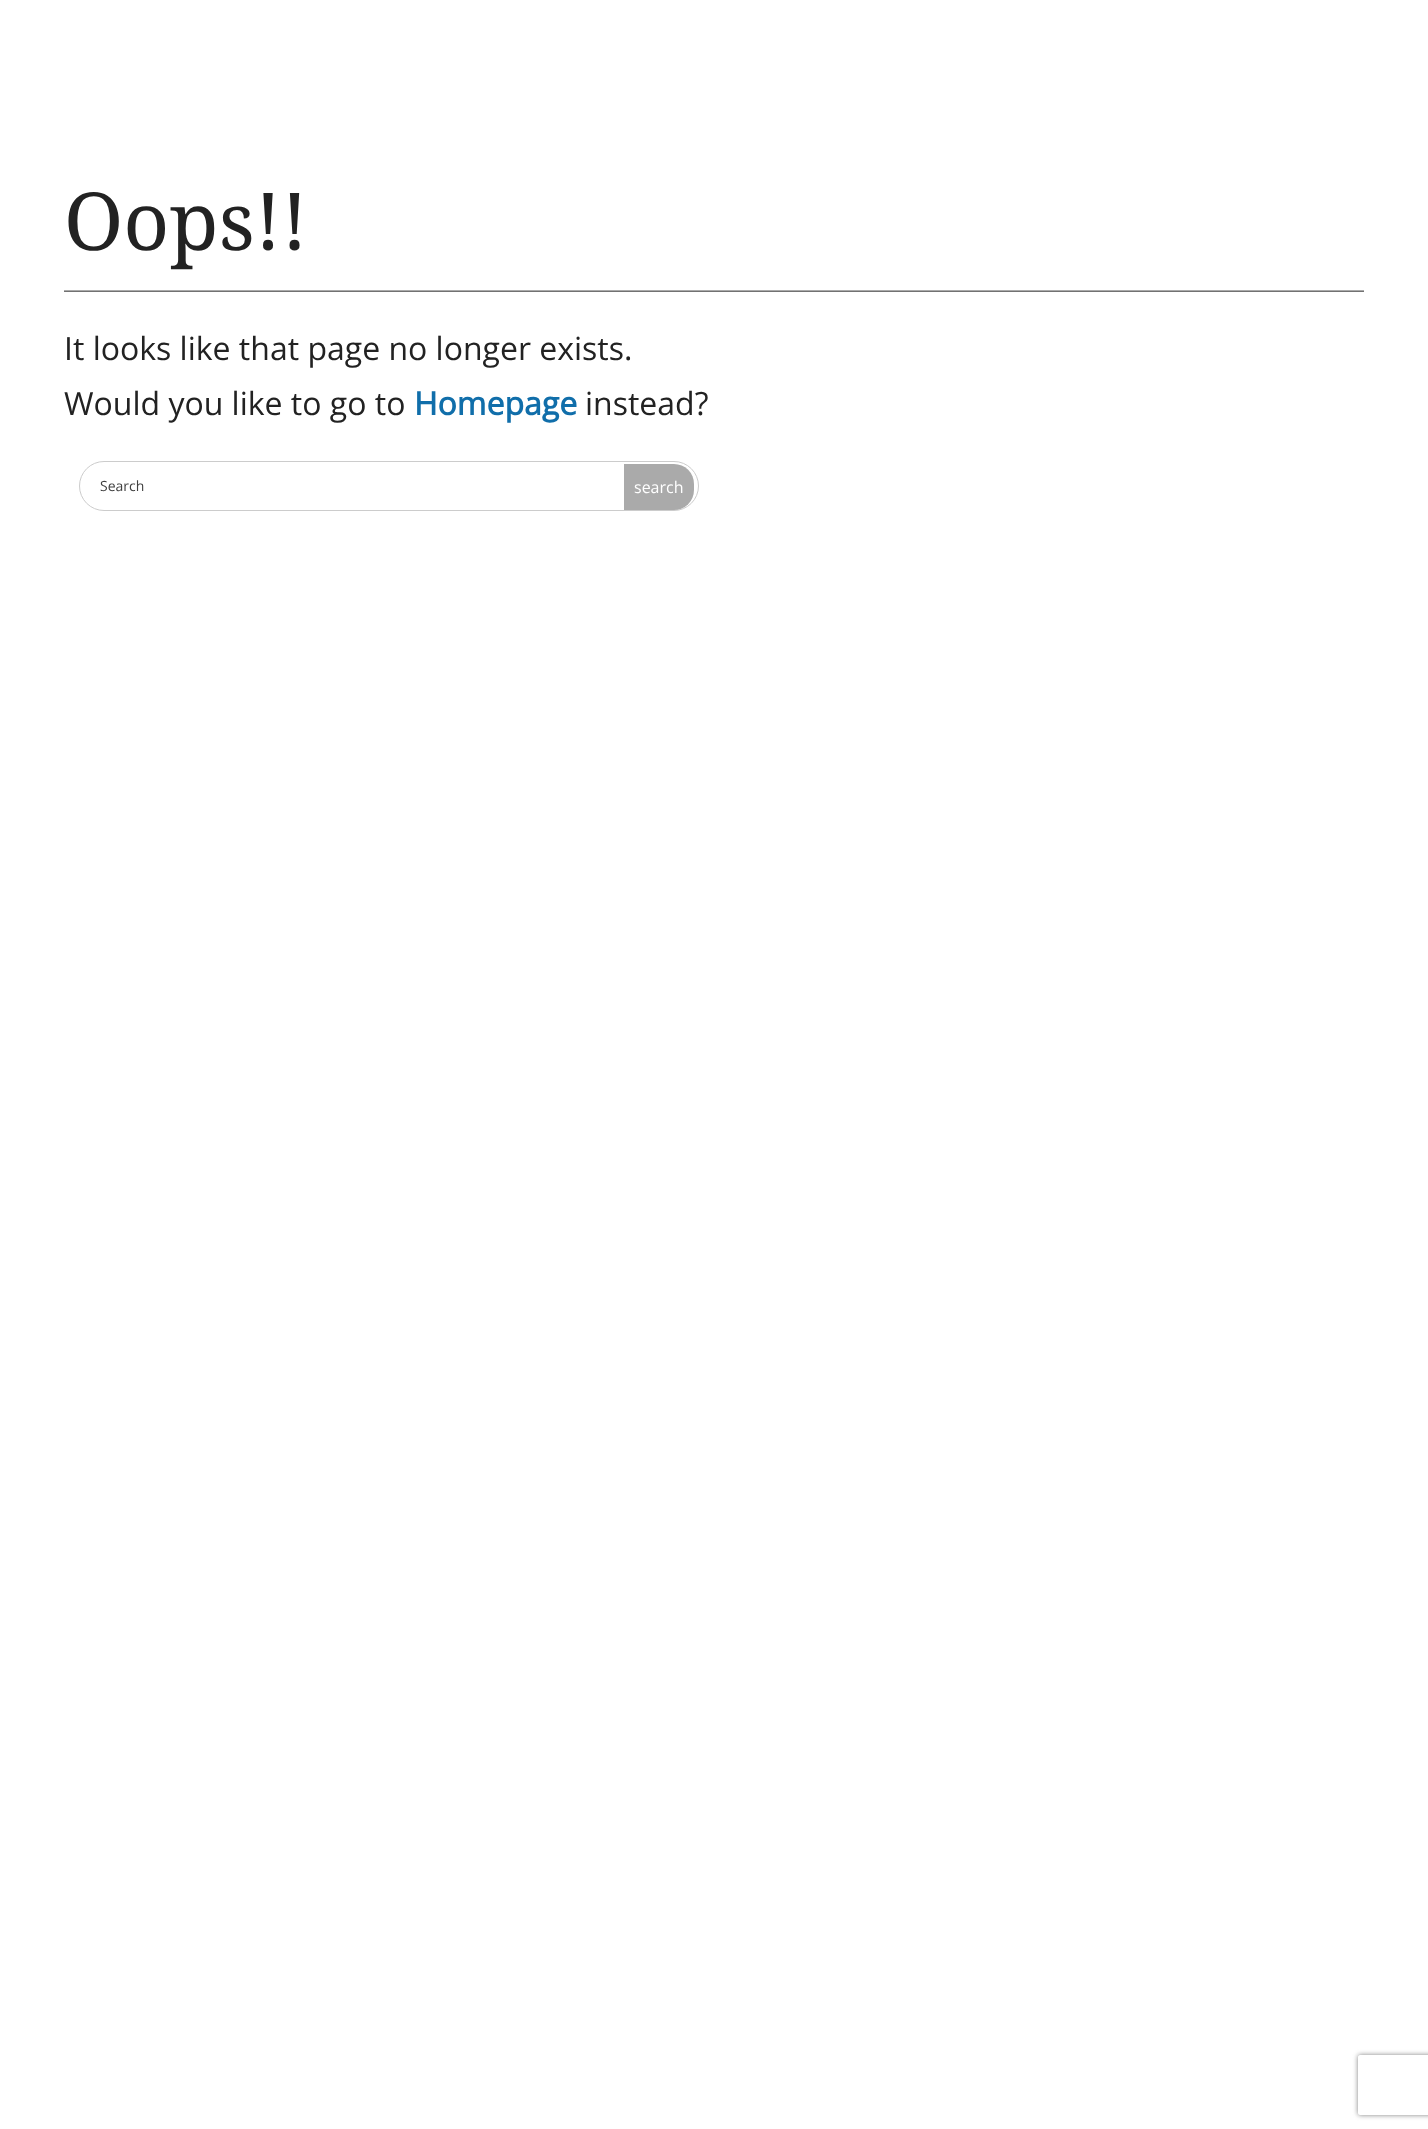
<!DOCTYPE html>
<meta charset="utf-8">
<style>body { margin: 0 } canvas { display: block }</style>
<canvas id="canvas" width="1428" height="2129"></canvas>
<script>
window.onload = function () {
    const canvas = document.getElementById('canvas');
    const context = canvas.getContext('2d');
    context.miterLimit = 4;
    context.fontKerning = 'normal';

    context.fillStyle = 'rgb(255, 255, 255)';
    context.fillRect(0, 0, 1428, 2129);
    context.fillStyle = 'rgb(114, 114, 114)';
    context.fillRect(64, 291, 1300, 1);
    context.fillStyle = 'rgb(170, 170, 170)';
    context.fillRect(64, 290, 1300, 1);
    context.beginPath();
    context.roundRect(79.5, 461.5, 619, 49, 24.5);
    context.strokeStyle = 'rgb(204, 204, 204)';
    context.stroke();
    context.beginPath();
    context.roundRect(624, 464, 70, 46, [0, 20, 20, 0]);
    context.fill();
    context.save();
    context.beginPath();
    context.moveTo(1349, 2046);
    context.lineTo(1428, 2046);
    context.lineTo(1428, 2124);
    context.lineTo(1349, 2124);
    context.closePath();
    context.moveTo(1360, 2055);
    context.lineTo(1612, 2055);
    context.bezierCurveTo(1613, 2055, 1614, 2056, 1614, 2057);
    context.lineTo(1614, 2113);
    context.bezierCurveTo(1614, 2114, 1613, 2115, 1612, 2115);
    context.lineTo(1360, 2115);
    context.bezierCurveTo(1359, 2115, 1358, 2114, 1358, 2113);
    context.lineTo(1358, 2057);
    context.bezierCurveTo(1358, 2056, 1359, 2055, 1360, 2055);
    context.closePath();
    context.clip('evenodd');
    context.fillStyle = 'rgb(128, 128, 128)';
    context.filter = 'blur(2.5px)';
    context.beginPath();
    context.roundRect(1358, 2055, 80, 60, 2);
    context.fill();
    context.filter = 'none';
    context.restore();
    context.font = '80px Noto Serif';
    context.fillStyle = 'rgb(34, 34, 34)';
    context.fillText('Oops!!', 64, 250);
    context.font = '32px Open Sans';
    context.fillText('It looks like that page no longer exists.', 64, 360);
    context.fillText('Would you like to go to', 64, 415);
    context.font = 'bold 32px Open Sans';
    context.fillStyle = 'rgb(16, 110, 170)';
    context.fillText('Homepage', 414, 415);
    context.font = '32px Open Sans';
    context.fillStyle = 'rgb(34, 34, 34)';
    context.fillText('instead?', 585, 415);
    context.font = '14px Open Sans';
    context.fillStyle = 'rgb(64, 64, 64)';
    context.fillText('Search', 100, 491);
    context.font = '16px Open Sans';
    context.fillStyle = 'rgb(255, 255, 255)';
    context.fillText('search', 634, 493);
};
</script>
